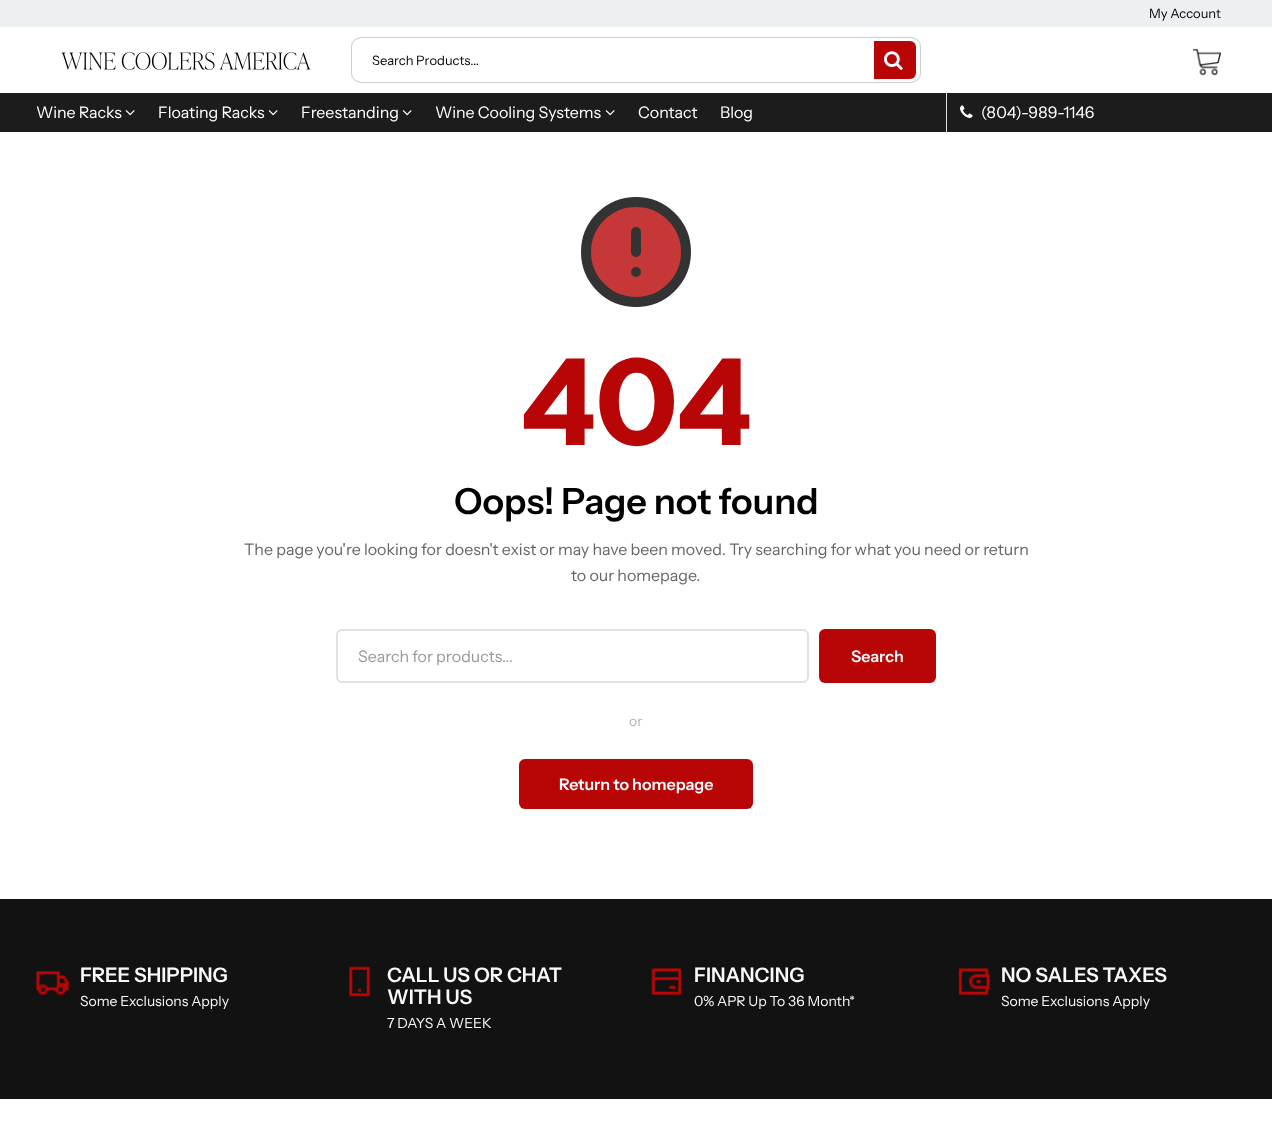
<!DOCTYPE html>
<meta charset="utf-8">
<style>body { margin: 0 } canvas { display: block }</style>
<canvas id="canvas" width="1272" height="1148"></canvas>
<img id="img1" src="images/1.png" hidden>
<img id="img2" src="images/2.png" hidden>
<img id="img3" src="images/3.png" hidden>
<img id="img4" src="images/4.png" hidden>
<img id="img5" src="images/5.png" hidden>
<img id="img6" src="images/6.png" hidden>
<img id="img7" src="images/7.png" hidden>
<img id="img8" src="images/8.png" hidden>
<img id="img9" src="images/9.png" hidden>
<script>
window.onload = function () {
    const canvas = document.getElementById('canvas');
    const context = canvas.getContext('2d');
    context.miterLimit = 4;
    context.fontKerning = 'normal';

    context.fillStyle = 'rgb(255, 255, 255)';
    context.fillRect(0, 0, 1272, 1148);
    context.fillStyle = 'rgb(236, 240, 241)';
    context.fillRect(0, 0, 1272, 27);
    context.drawImage(document.getElementById('img1'), 61, 52, 250, 18);
    context.beginPath();
    context.roundRect(351.5, 37.5, 569, 45, 9.5);
    context.strokeStyle = 'rgb(204, 204, 204)';
    context.stroke();
    context.fillStyle = 'rgb(184, 6, 6)';
    context.beginPath();
    context.roundRect(874, 41, 42, 38, [0, 6, 6, 0]);
    context.fill();
    context.drawImage(document.getElementById('img2'), 884, 51, 19, 19);
    context.drawImage(document.getElementById('img3'), 1193, 48, 28, 28);
    context.fillStyle = 'rgb(28, 28, 28)';
    context.fillRect(0, 93, 1272, 39);
    context.drawImage(document.getElementById('img4'), 125, 110, 10, 6);
    context.drawImage(document.getElementById('img4'), 268, 110, 10, 6);
    context.drawImage(document.getElementById('img4'), 402, 110, 10, 6);
    context.drawImage(document.getElementById('img4'), 605, 110, 10, 6);
    context.fillStyle = 'rgb(225, 225, 225)';
    context.fillRect(946, 93, 1, 39);
    context.drawImage(document.getElementById('img5'), 960, 105, 13, 13);
    context.fillStyle = 'rgb(198, 56, 56)';
    context.beginPath();
    context.arc(636, 252, 50, 0, 2 * Math.PI);
    context.fill();
    context.strokeStyle = 'rgb(51, 51, 51)';
    context.lineWidth = 10;
    context.stroke();
    context.beginPath();
    context.moveTo(636, 232);
    context.lineTo(636, 252);
    context.moveTo(636, 272);
    context.lineTo(636, 272);
    context.lineCap = 'round';
    context.lineJoin = 'round';
    context.stroke();
    context.beginPath();
    context.roundRect(337, 630, 471, 52, 5);
    context.strokeStyle = 'rgb(225, 225, 225)';
    context.lineWidth = 2;
    context.lineJoin = 'miter';
    context.stroke();
    context.fillStyle = 'rgb(184, 6, 6)';
    context.beginPath();
    context.roundRect(819, 629, 117, 54, 6);
    context.fill();
    context.beginPath();
    context.roundRect(519, 759, 234, 50, 6);
    context.fill();
    context.fillStyle = 'rgb(18, 18, 18)';
    context.fillRect(0, 899, 1272, 200);
    context.drawImage(document.getElementById('img6'), 36, 971, 33, 24);
    context.drawImage(document.getElementById('img7'), 349, 966, 21, 31);
    context.drawImage(document.getElementById('img8'), 651, 968, 31, 27);
    context.drawImage(document.getElementById('img9'), 958, 968, 32, 27);
    context.font = '13px Instrument Sans';
    context.fillStyle = 'rgb(0, 0, 0)';
    context.fillText('My Account', 1149, 18);
    context.fillText('Search Products...', 372, 65);
    context.font = '16px Instrument Sans';
    context.fillStyle = 'rgb(255, 255, 255)';
    context.fillText('Wine Racks', 36, 118);
    context.fillText('Floating Racks', 158, 118);
    context.fillText('Freestanding', 301, 118);
    context.fillText('Wine Cooling Systems', 435, 118);
    context.fillText('Contact', 638, 118);
    context.fillText('Blog', 720, 118);
    context.fillText('(804)-989-1146', 981, 118);
    context.font = 'bold 120px Instrument Sans';
    context.fillStyle = 'rgb(184, 6, 6)';
    context.fillText('404', 521, 445);
    context.font = '600 36px Instrument Sans';
    context.fillStyle = 'rgb(0, 0, 0)';
    context.fillText('Oops! Page not found', 454, 514);
    context.font = '16px Instrument Sans';
    context.fillStyle = 'rgb(102, 102, 102)';
    context.fillText('The page you\'re looking for doesn\'t exist or may have been moved. Try searching for what you need or return', 244, 555);
    context.fillText('to our homepage.', 571, 581);
    context.fillStyle = 'rgb(153, 153, 153)';
    context.fillText('Search for products...', 358, 662);
    context.font = '600 16px Instrument Sans';
    context.fillStyle = 'rgb(255, 255, 255)';
    context.fillText('Search', 851, 662);
    context.font = '14px Instrument Sans';
    context.fillStyle = 'rgb(179, 179, 179)';
    context.fillText('or', 629, 726);
    context.font = '600 16px Instrument Sans';
    context.fillStyle = 'rgb(255, 255, 255)';
    context.fillText('Return to homepage', 559, 790);
    context.font = '600 20px Instrument Sans';
    context.fillStyle = 'rgb(249, 249, 249)';
    context.fillText('FREE SHIPPING', 80, 982);
    context.font = '14px Instrument Sans';
    context.fillText('Some Exclusions Apply', 80, 1006);
    context.font = '600 20px Instrument Sans';
    context.fillText('CALL US OR CHAT', 387, 982);
    context.fillText('WITH US', 387, 1004);
    context.font = '14px Instrument Sans';
    context.fillText('7 DAYS A WEEK', 387, 1028);
    context.font = '600 20px Instrument Sans';
    context.fillText('FINANCING', 694, 982);
    context.font = '14px Instrument Sans';
    context.fillText('0% APR Up To 36 Month*', 694, 1006);
    context.font = '600 20px Instrument Sans';
    context.fillText('NO SALES TAXES', 1001, 982);
    context.font = '14px Instrument Sans';
    context.fillText('Some Exclusions Apply', 1001, 1006);
};
</script>
